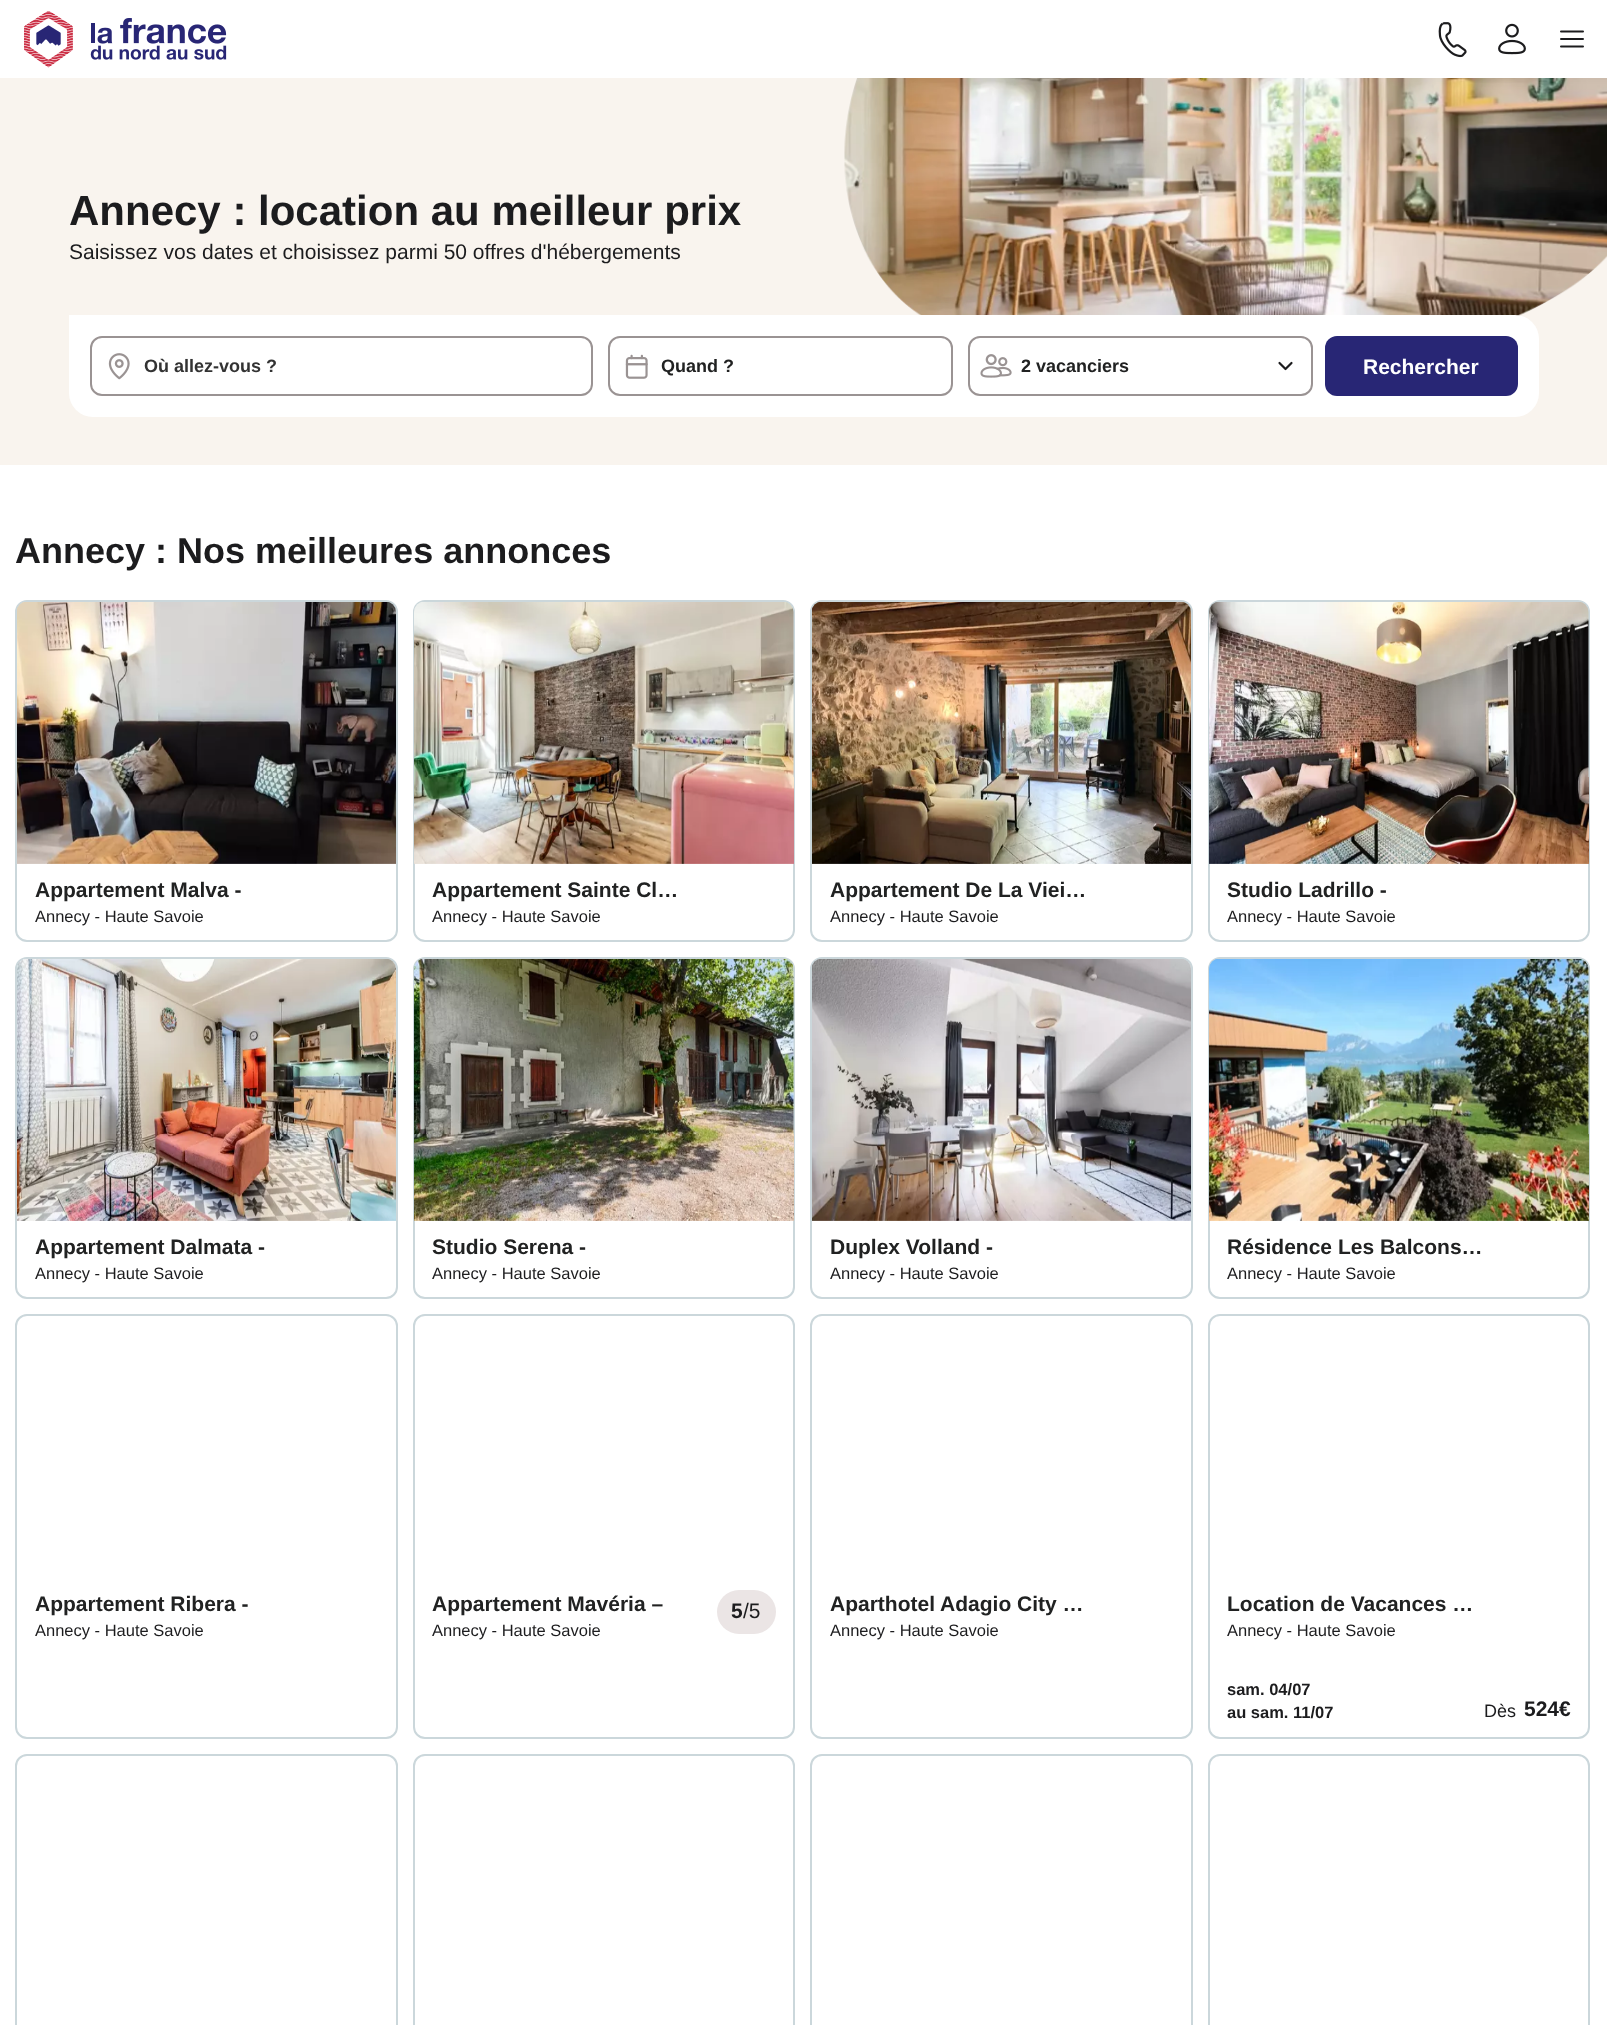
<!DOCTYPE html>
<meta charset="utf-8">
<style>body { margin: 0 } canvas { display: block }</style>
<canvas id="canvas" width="1607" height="2025"></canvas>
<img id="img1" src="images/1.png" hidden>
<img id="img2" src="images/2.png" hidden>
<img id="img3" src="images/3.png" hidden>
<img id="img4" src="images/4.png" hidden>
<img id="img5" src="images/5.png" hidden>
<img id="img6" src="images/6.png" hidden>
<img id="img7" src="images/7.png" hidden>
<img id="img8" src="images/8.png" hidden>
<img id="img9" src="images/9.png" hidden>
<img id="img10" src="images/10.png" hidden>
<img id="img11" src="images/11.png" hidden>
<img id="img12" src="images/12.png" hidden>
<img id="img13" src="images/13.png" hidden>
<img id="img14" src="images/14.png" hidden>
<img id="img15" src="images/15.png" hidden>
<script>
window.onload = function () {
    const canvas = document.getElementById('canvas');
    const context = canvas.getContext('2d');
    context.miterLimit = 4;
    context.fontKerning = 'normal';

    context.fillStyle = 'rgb(255, 255, 255)';
    context.fillRect(0, 0, 1607, 2025);
    context.drawImage(document.getElementById('img1'), 24, 11, 203, 57);
    context.drawImage(document.getElementById('img2'), 1438, 22, 29, 36);
    context.drawImage(document.getElementById('img3'), 1498, 23, 28, 32);
    context.beginPath();
    context.moveTo(1561, 39);
    context.lineTo(1583, 39);
    context.moveTo(1561, 46.5);
    context.lineTo(1583, 46.5);
    context.moveTo(1561, 31.5);
    context.lineTo(1583, 31.5);
    context.strokeStyle = 'rgb(28, 28, 30)';
    context.lineWidth = 2;
    context.lineCap = 'round';
    context.lineJoin = 'round';
    context.stroke();
    context.fillStyle = 'rgb(249, 244, 238)';
    context.fillRect(0, 78, 1607, 387);
    context.drawImage(document.getElementById('img4'), 844, 78, 763, 238);
    context.fillStyle = 'rgb(255, 255, 255)';
    context.beginPath();
    context.roundRect(69, 315, 1470, 102, [0, 24, 24, 24]);
    context.fill();
    context.beginPath();
    context.roundRect(91, 337, 501, 58, 11);
    context.strokeStyle = 'rgb(154, 147, 147)';
    context.lineJoin = 'miter';
    context.stroke();
    context.drawImage(document.getElementById('img5'), 108, 353, 22, 27);
    context.beginPath();
    context.roundRect(609, 337, 343, 58, 11);
    context.stroke();
    context.drawImage(document.getElementById('img6'), 625, 354, 23, 25);
    context.beginPath();
    context.roundRect(969, 337, 343, 58, 11);
    context.stroke();
    context.drawImage(document.getElementById('img7'), 980, 354, 32, 24);
    context.beginPath();
    context.moveTo(1291.5, 363);
    context.lineTo(1285.5, 369);
    context.lineTo(1279.5, 363);
    context.strokeStyle = 'rgb(28, 28, 30)';
    context.lineWidth = 2.2;
    context.lineJoin = 'round';
    context.stroke();
    context.fillStyle = 'rgb(40, 38, 117)';
    context.beginPath();
    context.roundRect(1325, 336, 193, 60, 12);
    context.fill();
    context.beginPath();
    context.roundRect(16, 601, 381, 340, 11);
    context.strokeStyle = 'rgb(203, 215, 219)';
    context.lineWidth = 2;
    context.lineJoin = 'miter';
    context.stroke();
    context.drawImage(document.getElementById('img8'), 17, 602, 379, 262);
    context.beginPath();
    context.roundRect(414, 601, 380, 340, 11);
    context.stroke();
    context.drawImage(document.getElementById('img9'), 414, 602, 380, 262);
    context.beginPath();
    context.roundRect(811, 601, 381, 340, 11);
    context.stroke();
    context.drawImage(document.getElementById('img10'), 812, 602, 379, 262);
    context.beginPath();
    context.roundRect(1209, 601, 380, 340, 11);
    context.stroke();
    context.drawImage(document.getElementById('img11'), 1209, 602, 380, 262);
    context.beginPath();
    context.roundRect(16, 958, 381, 340, 11);
    context.stroke();
    context.drawImage(document.getElementById('img12'), 17, 959, 379, 262);
    context.beginPath();
    context.roundRect(414, 958, 380, 340, 11);
    context.stroke();
    context.drawImage(document.getElementById('img13'), 414, 959, 380, 262);
    context.beginPath();
    context.roundRect(811, 958, 381, 340, 11);
    context.stroke();
    context.drawImage(document.getElementById('img14'), 812, 959, 379, 262);
    context.beginPath();
    context.roundRect(1209, 958, 380, 340, 11);
    context.stroke();
    context.drawImage(document.getElementById('img15'), 1209, 959, 380, 262);
    context.beginPath();
    context.roundRect(16, 1315, 381, 423, 11);
    context.stroke();
    context.beginPath();
    context.roundRect(414, 1315, 380, 423, 11);
    context.stroke();
    context.fillStyle = 'rgb(235, 229, 229)';
    context.beginPath();
    context.roundRect(717, 1590, 59, 44, 22);
    context.fill();
    context.beginPath();
    context.roundRect(811, 1315, 381, 423, 11);
    context.stroke();
    context.beginPath();
    context.roundRect(1209, 1315, 380, 423, 11);
    context.stroke();
    context.beginPath();
    context.roundRect(16, 1755, 381, 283, 11);
    context.stroke();
    context.beginPath();
    context.roundRect(414, 1755, 380, 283, 11);
    context.stroke();
    context.beginPath();
    context.roundRect(811, 1755, 381, 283, 11);
    context.stroke();
    context.beginPath();
    context.roundRect(1209, 1755, 380, 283, 11);
    context.stroke();
    context.font = 'bold 42px Liberation Sans';
    context.fillStyle = 'rgb(28, 28, 30)';
    context.fillText('Annecy : location au meilleur prix', 69, 225);
    context.font = '21px Liberation Sans';
    context.fillText('Saisissez vos dates et choisissez parmi 50 offres d\'hébergements', 69, 259);
    context.font = 'bold 18px Liberation Sans';
    context.fillStyle = 'rgb(51, 51, 51)';
    context.fillText('Où allez-vous ?', 144, 372);
    context.fillStyle = 'rgb(33, 34, 34)';
    context.fillText('Quand ?', 661, 372);
    context.fillText('2 vacanciers', 1021, 372);
    context.font = 'bold 21px Liberation Sans';
    context.fillStyle = 'rgb(255, 255, 255)';
    context.fillText('Rechercher', 1363, 374);
    context.font = 'bold 36px Liberation Sans';
    context.fillStyle = 'rgb(28, 28, 30)';
    context.fillText('Annecy : Nos meilleures annonces', 15, 563);
    context.font = 'bold 21px Liberation Sans';
    context.fillStyle = 'rgb(33, 34, 34)';
    context.fillText('Appartement Malva -', 35, 897);
    context.font = '16.5px Liberation Sans';
    context.fillStyle = 'rgb(28, 28, 30)';
    context.fillText('Annecy - Haute Savoie', 35, 922);
    context.font = 'bold 21px Liberation Sans';
    context.fillStyle = 'rgb(33, 34, 34)';
    context.fillText('Appartement Sainte Cl…', 432, 897);
    context.font = '16.5px Liberation Sans';
    context.fillStyle = 'rgb(28, 28, 30)';
    context.fillText('Annecy - Haute Savoie', 432, 922);
    context.font = 'bold 21px Liberation Sans';
    context.fillStyle = 'rgb(33, 34, 34)';
    context.fillText('Appartement De La Viei…', 830, 897);
    context.font = '16.5px Liberation Sans';
    context.fillStyle = 'rgb(28, 28, 30)';
    context.fillText('Annecy - Haute Savoie', 830, 922);
    context.font = 'bold 21px Liberation Sans';
    context.fillStyle = 'rgb(33, 34, 34)';
    context.fillText('Studio Ladrillo -', 1227, 897);
    context.font = '16.5px Liberation Sans';
    context.fillStyle = 'rgb(28, 28, 30)';
    context.fillText('Annecy - Haute Savoie', 1227, 922);
    context.font = 'bold 21px Liberation Sans';
    context.fillStyle = 'rgb(33, 34, 34)';
    context.fillText('Appartement Dalmata -', 35, 1254);
    context.font = '16.5px Liberation Sans';
    context.fillStyle = 'rgb(28, 28, 30)';
    context.fillText('Annecy - Haute Savoie', 35, 1279);
    context.font = 'bold 21px Liberation Sans';
    context.fillStyle = 'rgb(33, 34, 34)';
    context.fillText('Studio Serena -', 432, 1254);
    context.font = '16.5px Liberation Sans';
    context.fillStyle = 'rgb(28, 28, 30)';
    context.fillText('Annecy - Haute Savoie', 432, 1279);
    context.font = 'bold 21px Liberation Sans';
    context.fillStyle = 'rgb(33, 34, 34)';
    context.fillText('Duplex Volland -', 830, 1254);
    context.font = '16.5px Liberation Sans';
    context.fillStyle = 'rgb(28, 28, 30)';
    context.fillText('Annecy - Haute Savoie', 830, 1279);
    context.font = 'bold 21px Liberation Sans';
    context.fillStyle = 'rgb(33, 34, 34)';
    context.fillText('Résidence Les Balcons…', 1227, 1254);
    context.font = '16.5px Liberation Sans';
    context.fillStyle = 'rgb(28, 28, 30)';
    context.fillText('Annecy - Haute Savoie', 1227, 1279);
    context.font = 'bold 21px Liberation Sans';
    context.fillStyle = 'rgb(33, 34, 34)';
    context.fillText('Appartement Ribera -', 35, 1611);
    context.font = '16.5px Liberation Sans';
    context.fillStyle = 'rgb(28, 28, 30)';
    context.fillText('Annecy - Haute Savoie', 35, 1636);
    context.font = 'bold 21px Liberation Sans';
    context.fillStyle = 'rgb(33, 34, 34)';
    context.fillText('Appartement Mavéria –', 432, 1611);
    context.font = '16.5px Liberation Sans';
    context.fillStyle = 'rgb(28, 28, 30)';
    context.fillText('Annecy - Haute Savoie', 432, 1636);
    context.font = 'bold 21px Liberation Sans';
    context.fillText('5', 731, 1618);
    context.font = '21px Liberation Sans';
    context.fillText('/5', 743, 1618);
    context.font = 'bold 21px Liberation Sans';
    context.fillStyle = 'rgb(33, 34, 34)';
    context.fillText('Aparthotel Adagio City …', 830, 1611);
    context.font = '16.5px Liberation Sans';
    context.fillStyle = 'rgb(28, 28, 30)';
    context.fillText('Annecy - Haute Savoie', 830, 1636);
    context.font = 'bold 21px Liberation Sans';
    context.fillStyle = 'rgb(33, 34, 34)';
    context.fillText('Location de Vacances …', 1227, 1611);
    context.font = '16.5px Liberation Sans';
    context.fillStyle = 'rgb(28, 28, 30)';
    context.fillText('Annecy - Haute Savoie', 1227, 1636);
    context.font = 'bold 16.5px Liberation Sans';
    context.fillText('sam. 04/07', 1227, 1695);
    context.fillText('au sam. 11/07', 1227, 1718);
    context.font = '18px Liberation Sans';
    context.fillText('Dès', 1484, 1717);
    context.font = 'bold 21px Liberation Sans';
    context.fillText('524€', 1524, 1716);
};
</script>
